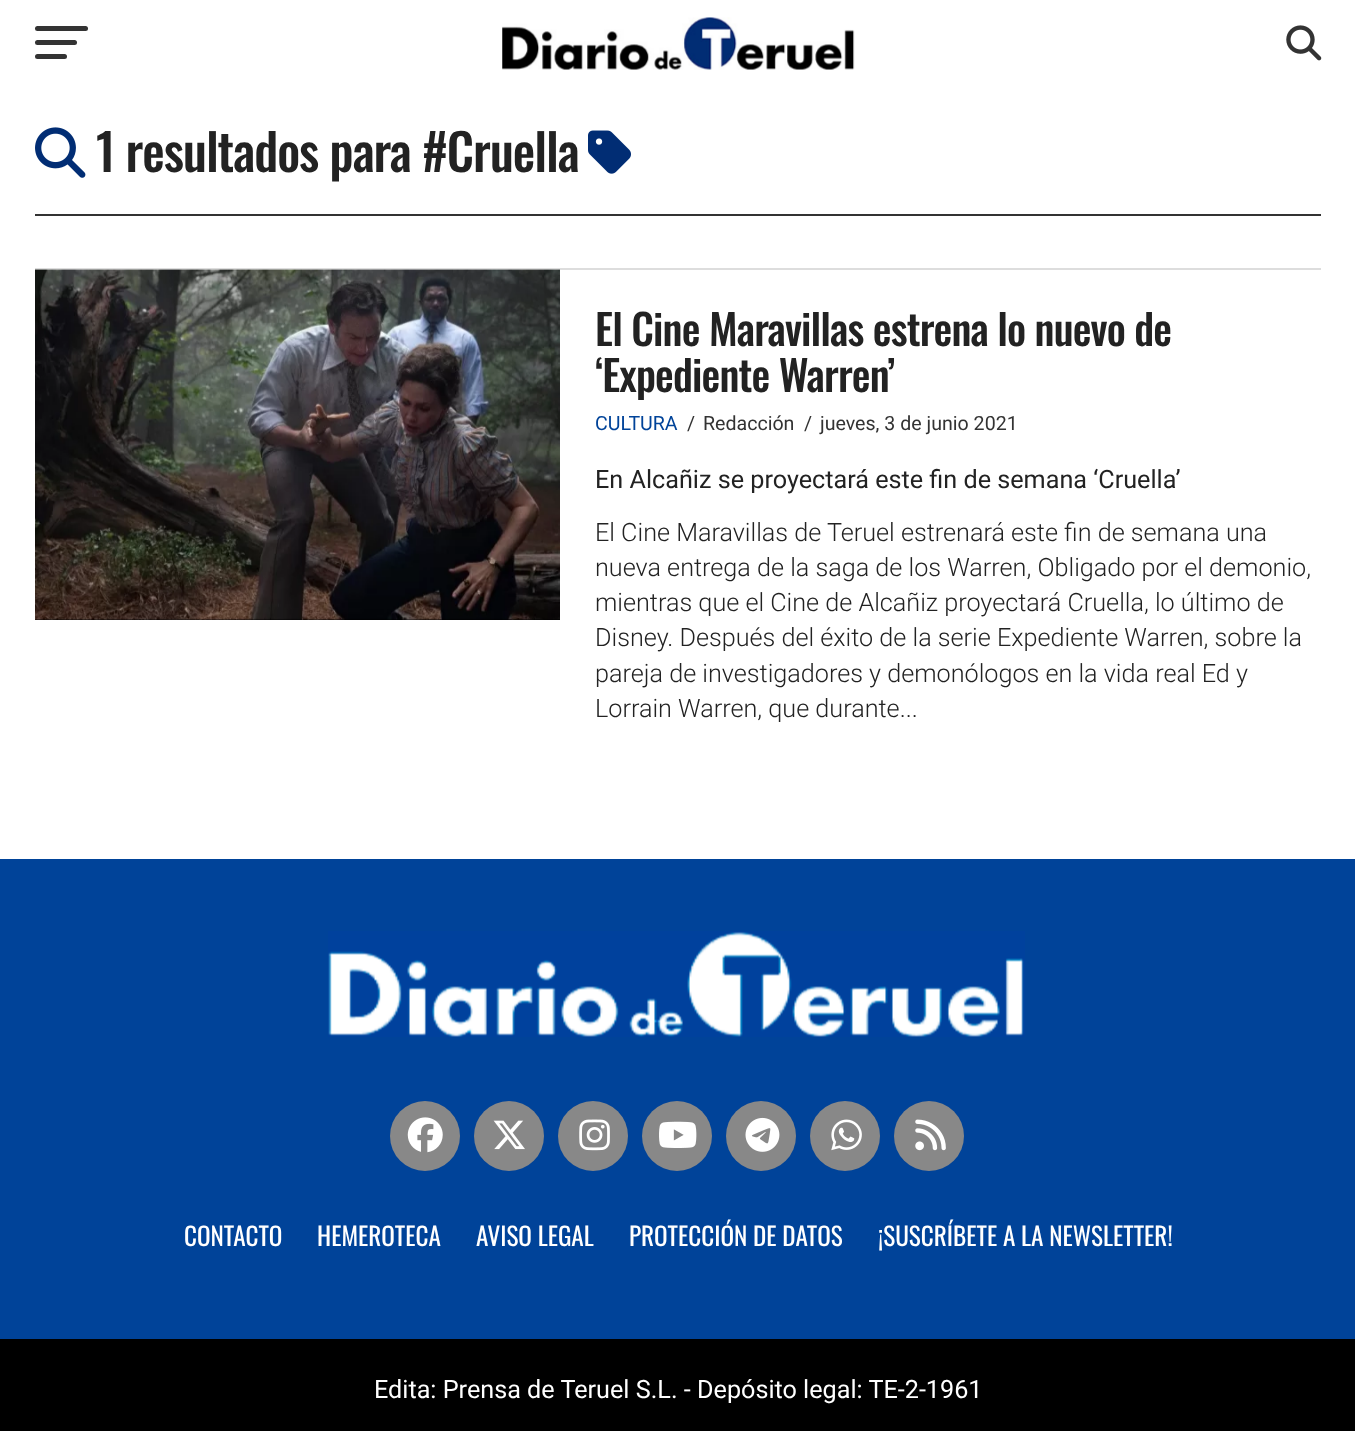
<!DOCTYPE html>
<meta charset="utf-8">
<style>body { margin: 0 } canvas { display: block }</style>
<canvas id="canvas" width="1355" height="1431"></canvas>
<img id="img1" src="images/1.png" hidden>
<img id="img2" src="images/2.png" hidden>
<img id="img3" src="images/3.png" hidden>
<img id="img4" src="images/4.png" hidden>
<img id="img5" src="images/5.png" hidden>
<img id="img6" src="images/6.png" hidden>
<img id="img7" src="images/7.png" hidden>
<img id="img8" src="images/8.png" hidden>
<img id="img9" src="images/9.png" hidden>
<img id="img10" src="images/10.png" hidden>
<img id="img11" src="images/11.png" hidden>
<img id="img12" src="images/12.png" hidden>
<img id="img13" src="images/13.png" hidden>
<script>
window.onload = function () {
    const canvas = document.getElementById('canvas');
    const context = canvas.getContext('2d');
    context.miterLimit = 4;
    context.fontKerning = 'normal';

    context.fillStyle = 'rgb(255, 255, 255)';
    context.fillRect(0, 0, 1355, 1431);
    context.fillStyle = 'rgb(51, 51, 51)';
    context.beginPath();
    context.roundRect(35, 26, 53, 5, 2.5);
    context.fill();
    context.beginPath();
    context.roundRect(35, 40, 42, 5, 2.5);
    context.fill();
    context.beginPath();
    context.roundRect(35, 54, 32, 5, 2.5);
    context.fill();
    context.drawImage(document.getElementById('img1'), 502, 17, 353, 53);
    context.drawImage(document.getElementById('img2'), 1286, 25, 36, 36);
    context.drawImage(document.getElementById('img3'), 35, 127, 51, 51);
    context.drawImage(document.getElementById('img4'), 588, 130, 43, 44);
    context.fillRect(35, 214, 1286, 2);
    context.fillStyle = 'rgb(221, 221, 221)';
    context.fillRect(35, 268, 1286, 2);
    context.fillStyle = 'rgb(0, 0, 0)';
    context.fillRect(35, 618, 525, 2);
    context.drawImage(document.getElementById('img5'), 35, 269, 525, 351);
    context.fillStyle = 'rgb(0, 67, 153)';
    context.fillRect(0, 859, 1355, 480);
    context.drawImage(document.getElementById('img6'), 328, 931, 697, 106);
    context.fillStyle = 'rgb(136, 136, 136)';
    context.beginPath();
    context.arc(425, 1136, 35, 0, 2 * Math.PI);
    context.fill();
    context.drawImage(document.getElementById('img7'), 407, 1117, 36, 36);
    context.beginPath();
    context.arc(509, 1136, 35, 0, 2 * Math.PI);
    context.fill();
    context.drawImage(document.getElementById('img8'), 493, 1120, 32, 30);
    context.beginPath();
    context.arc(593, 1136, 35, 0, 2 * Math.PI);
    context.fill();
    context.drawImage(document.getElementById('img9'), 579, 1119, 31, 32);
    context.beginPath();
    context.arc(677, 1136, 35, 0, 2 * Math.PI);
    context.fill();
    context.drawImage(document.getElementById('img10'), 659, 1121, 38, 27);
    context.beginPath();
    context.arc(761, 1136, 35, 0, 2 * Math.PI);
    context.fill();
    context.drawImage(document.getElementById('img11'), 745, 1117, 35, 35);
    context.beginPath();
    context.arc(845, 1136, 35, 0, 2 * Math.PI);
    context.fill();
    context.drawImage(document.getElementById('img12'), 831, 1119, 31, 32);
    context.beginPath();
    context.arc(929, 1136, 35, 0, 2 * Math.PI);
    context.fill();
    context.drawImage(document.getElementById('img13'), 915, 1119, 31, 32);
    context.fillStyle = 'rgb(0, 0, 0)';
    context.fillRect(0, 1339, 1355, 92);
    context.letterSpacing = '-1px';
    context.font = '500 50.5px Oswald';
    context.fillStyle = 'rgb(34, 34, 34)';
    context.fillText('1 resultados para #Cruella', 96, 172);
    context.letterSpacing = '-0.85px';
    context.font = '500 42px Oswald';
    context.fillText('El Cine Maravillas estrena lo nuevo de', 595, 346);
    context.fillText('‘Expediente Warren’', 595, 392);
    context.letterSpacing = '0px';
    context.font = '19.6px Roboto';
    context.fillStyle = 'rgb(0, 67, 153)';
    context.fillText('CULTURA', 595, 430);
    context.fillStyle = 'rgb(51, 51, 51)';
    context.fillText('/', 687, 430);
    context.fillText('Redacción', 703, 430);
    context.fillText('/', 804, 430);
    context.fillText('jueves, 3 de junio 2021', 820, 430);
    context.font = '25.2px Roboto';
    context.fillStyle = 'rgb(34, 34, 34)';
    context.fillText('En Alcañiz se proyectará este fin de semana ‘Cruella’', 595, 488);
    context.font = '300 25.2px Roboto';
    context.fillText('El Cine Maravillas de Teruel estrenará este fin de semana una', 595, 541);
    context.fillText('nueva entrega de la saga de los Warren, Obligado por el demonio,', 595, 576);
    context.fillText('mientras que el Cine de Alcañiz proyectará Cruella, lo último de', 595, 611);
    context.fillText('Disney. Después del éxito de la serie Expediente Warren, sobre la', 595, 646);
    context.fillText('pareja de investigadores y demonólogos en la vida real Ed y', 595, 682);
    context.fillText('Lorrain Warren, que durante...', 595, 717);
    context.font = '25.2px Oswald';
    context.fillStyle = 'rgb(255, 255, 255)';
    context.fillText('CONTACTO', 184, 1246);
    context.fillText('HEMEROTECA', 317, 1246);
    context.fillText('AVISO LEGAL', 476, 1246);
    context.fillText('PROTECCIÓN DE DATOS', 629, 1246);
    context.fillText('¡SUSCRÍBETE A LA NEWSLETTER!', 878, 1246);
    context.font = '25.2px Roboto';
    context.fillText('Edita: Prensa de Teruel S.L. - Depósito legal: TE-2-1961', 374, 1398);
};
</script>
